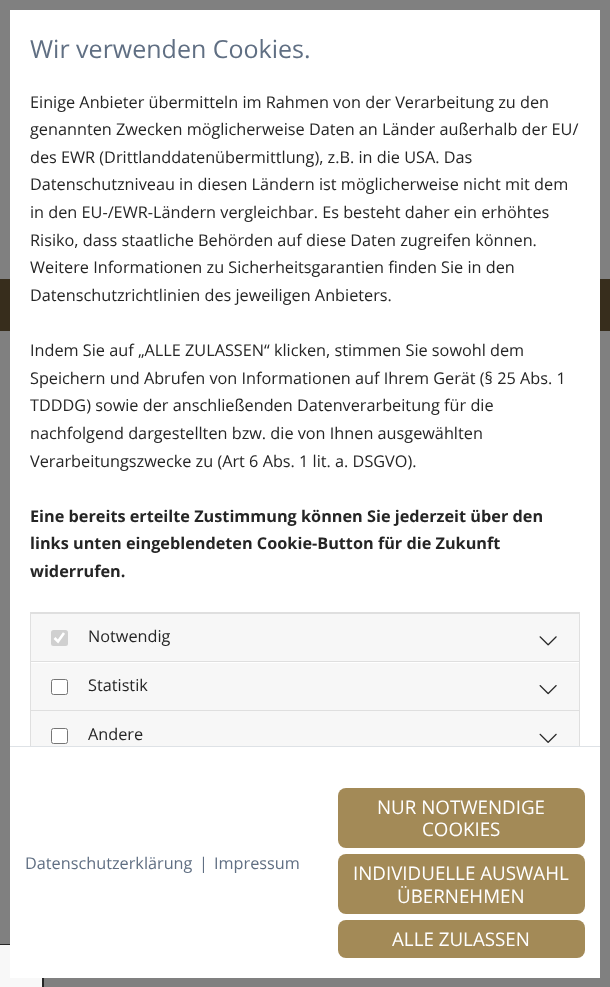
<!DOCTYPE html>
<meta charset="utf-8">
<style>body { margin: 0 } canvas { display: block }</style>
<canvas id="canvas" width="610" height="987"></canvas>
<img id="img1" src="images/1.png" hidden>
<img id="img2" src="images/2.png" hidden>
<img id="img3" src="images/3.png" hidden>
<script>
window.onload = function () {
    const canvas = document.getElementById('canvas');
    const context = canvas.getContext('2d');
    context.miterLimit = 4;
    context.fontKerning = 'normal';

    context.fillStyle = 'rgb(128, 128, 128)';
    context.fillRect(0, 0, 610, 987);
    context.fillStyle = 'rgb(55, 45, 28)';
    context.fillRect(0, 279, 610, 52);
    context.fillStyle = 'rgb(248, 248, 248)';
    context.fillRect(0, 945, 42, 42);
    context.fillStyle = 'rgb(37, 37, 37)';
    context.beginPath();
    context.moveTo(0, 944);
    context.lineTo(39, 944);
    context.bezierCurveTo(42, 944, 44, 946, 44, 949);
    context.lineTo(44, 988);
    context.lineTo(0, 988);
    context.closePath();
    context.moveTo(0, 945);
    context.lineTo(39, 945);
    context.bezierCurveTo(41, 945, 42, 947, 42, 949);
    context.lineTo(42, 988);
    context.lineTo(0, 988);
    context.closePath();
    context.fill('evenodd');
    context.fillStyle = 'rgb(255, 255, 255)';
    context.fillRect(10, 10, 590, 968);
    context.fillStyle = 'rgb(223, 223, 223)';
    context.beginPath();
    context.moveTo(30, 612);
    context.lineTo(580, 612);
    context.lineTo(579, 614);
    context.lineTo(31, 614);
    context.closePath();
    context.fill();
    context.fillStyle = 'rgba(0, 0, 0, 0.12)';
    context.beginPath();
    context.moveTo(580, 612);
    context.lineTo(580, 661);
    context.lineTo(579, 661);
    context.lineTo(579, 614);
    context.closePath();
    context.fill();
    context.beginPath();
    context.moveTo(30, 661);
    context.lineTo(30, 612);
    context.lineTo(31, 614);
    context.lineTo(31, 661);
    context.closePath();
    context.fill();
    context.fillStyle = 'rgb(247, 247, 247)';
    context.fillRect(31, 614, 548, 47);
    context.fillStyle = 'rgb(208, 208, 208)';
    context.beginPath();
    context.roundRect(51, 630, 17, 16, 2.5);
    context.fill();
    context.beginPath();
    context.moveTo(54.5, 638);
    context.lineTo(58, 641.5);
    context.lineTo(64, 633);
    context.strokeStyle = 'rgb(255, 255, 255)';
    context.lineWidth = 2.6;
    context.stroke();
    context.drawImage(document.getElementById('img1'), 539, 636, 18, 10);
    context.fillStyle = 'rgb(223, 223, 223)';
    context.beginPath();
    context.moveTo(30, 661);
    context.lineTo(580, 661);
    context.lineTo(579, 662);
    context.lineTo(31, 662);
    context.closePath();
    context.fill();
    context.fillStyle = 'rgba(0, 0, 0, 0.12)';
    context.beginPath();
    context.moveTo(580, 661);
    context.lineTo(580, 710);
    context.lineTo(579, 710);
    context.lineTo(579, 662);
    context.closePath();
    context.fill();
    context.beginPath();
    context.moveTo(30, 710);
    context.lineTo(30, 661);
    context.lineTo(31, 662);
    context.lineTo(31, 710);
    context.closePath();
    context.fill();
    context.fillStyle = 'rgb(247, 247, 247)';
    context.fillRect(31, 663, 548, 47);
    context.fillStyle = 'rgb(255, 255, 255)';
    context.beginPath();
    context.roundRect(51.5, 679.5, 16, 15, 2);
    context.fill();
    context.strokeStyle = 'rgb(118, 118, 118)';
    context.lineWidth = 1;
    context.stroke();
    context.drawImage(document.getElementById('img2'), 539, 685, 18, 10);
    context.fillStyle = 'rgb(222, 226, 230)';
    context.fillRect(10, 746, 590, 1);
    context.save();
    context.beginPath();
    context.rect(10, 88, 590, 658);
    context.clip();
    context.strokeStyle = 'rgb(223, 223, 223)';
    context.strokeRect(30.5, 710.5, 549, 49);
    context.restore();
    context.fillStyle = 'rgb(247, 247, 247)';
    context.fillRect(31, 711, 548, 35);
    context.fillStyle = 'rgb(255, 255, 255)';
    context.beginPath();
    context.roundRect(51.5, 728.5, 16, 15, 2);
    context.fill();
    context.stroke();
    context.drawImage(document.getElementById('img3'), 539, 733, 18, 10);
    context.fillStyle = 'rgb(163, 138, 87)';
    context.beginPath();
    context.roundRect(338, 788, 247, 60, 8);
    context.fill();
    context.beginPath();
    context.roundRect(338, 854, 247, 60, 8);
    context.fill();
    context.beginPath();
    context.roundRect(338, 920, 247, 38, 8);
    context.fill();
    context.font = '25px Open Sans';
    context.fillStyle = 'rgb(96, 111, 131)';
    context.fillText('Wir verwenden Cookies.', 30, 58);
    context.font = '16.25px Open Sans';
    context.fillStyle = 'rgb(37, 37, 37)';
    context.fillText('Einige Anbieter übermitteln im Rahmen von der Verarbeitung zu den', 30, 108);
    context.fillText('genannten Zwecken möglicherweise Daten an Länder außerhalb der EU/', 30, 135);
    context.fillText('des EWR (Drittlanddatenübermittlung), z.B. in die USA. Das', 30, 163);
    context.fillText('Datenschutzniveau in diesen Ländern ist möglicherweise nicht mit dem', 30, 190);
    context.fillText('in den EU-/EWR-Ländern vergleichbar. Es besteht daher ein erhöhtes', 30, 218);
    context.fillText('Risiko, dass staatliche Behörden auf diese Daten zugreifen können.', 30, 246);
    context.fillText('Weitere Informationen zu Sicherheitsgarantien finden Sie in den', 30, 273);
    context.fillText('Datenschutzrichtlinien des jeweiligen Anbieters.', 30, 301);
    context.fillText('Indem Sie auf „ALLE ZULASSEN“ klicken, stimmen Sie sowohl dem', 30, 356);
    context.fillText('Speichern und Abrufen von Informationen auf Ihrem Gerät (§ 25 Abs. 1', 30, 384);
    context.fillText('TDDDG) sowie der anschließenden Datenverarbeitung für die', 30, 411);
    context.fillText('nachfolgend dargestellten bzw. die von Ihnen ausgewählten', 30, 439);
    context.fillText('Verarbeitungszwecke zu (Art 6 Abs. 1 lit. a. DSGVO).', 30, 467);
    context.font = 'bold 16.25px Open Sans';
    context.fillText('Eine bereits erteilte Zustimmung können Sie jederzeit über den', 30, 522);
    context.fillText('links unten eingeblendeten Cookie-Button für die Zukunft', 30, 549);
    context.fillText('widerrufen.', 30, 577);
    context.font = '16.25px Open Sans';
    context.fillText('Notwendig', 88, 642);
    context.fillText('Statistik', 88, 691);
    context.fillText('Andere', 88, 740);
    context.fillStyle = 'rgb(96, 111, 131)';
    context.fillText('Datenschutzerklärung', 25, 869);
    context.fillText('|', 199, 869);
    context.fillText('Impressum', 214, 869);
    context.font = '18.75px Open Sans';
    context.fillStyle = 'rgb(255, 255, 255)';
    context.fillText('NUR NOTWENDIGE', 377, 814);
    context.fillText('COOKIES', 422, 836);
    context.fillText('INDIVIDUELLE AUSWAHL', 353, 880);
    context.fillText('ÜBERNEHMEN', 397, 903);
    context.fillText('ALLE ZULASSEN', 392, 946);
};
</script>
